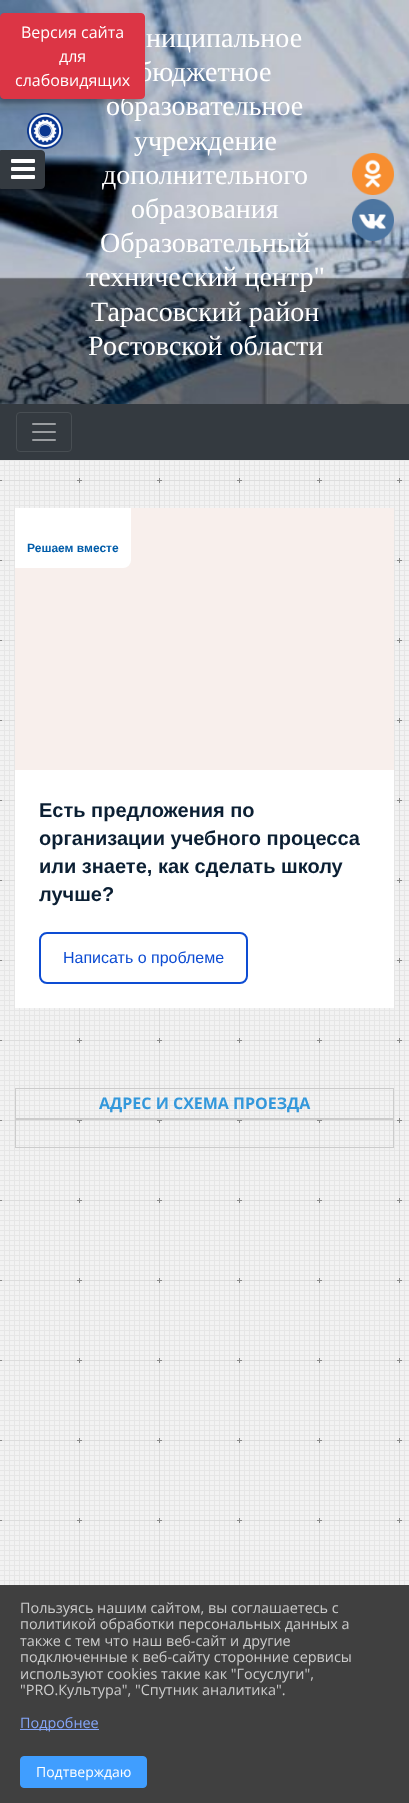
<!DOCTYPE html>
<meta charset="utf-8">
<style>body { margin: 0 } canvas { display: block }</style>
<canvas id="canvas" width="409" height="1803"></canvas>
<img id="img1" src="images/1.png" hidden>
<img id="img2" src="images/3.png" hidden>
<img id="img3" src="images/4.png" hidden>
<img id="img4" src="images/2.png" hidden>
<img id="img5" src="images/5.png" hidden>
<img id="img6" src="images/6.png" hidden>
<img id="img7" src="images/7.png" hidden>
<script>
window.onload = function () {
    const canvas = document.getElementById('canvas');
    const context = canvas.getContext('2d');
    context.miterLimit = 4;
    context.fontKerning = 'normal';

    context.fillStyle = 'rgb(255, 255, 255)';
    context.fillRect(0, 0, 409, 1803);
    context.drawImage(document.getElementById('img1'), 0, 460, 409, 1125);
    context.drawImage(document.getElementById('img2'), 0, 0, 409, 404);
    context.drawImage(document.getElementById('img3'), 27, 113, 36, 36);
    context.fillStyle = 'rgba(0, 0, 0, 0.35)';
    context.filter = 'blur(4px)';
    context.beginPath();
    context.roundRect(-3, 20, 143, 84, 3);
    context.fill();
    context.filter = 'none';
    context.fillStyle = 'rgb(52, 58, 64)';
    context.beginPath();
    context.roundRect(0.5, 150.5, 44, 38, [0, 3.5, 3.5, 0]);
    context.fill();
    context.strokeStyle = 'rgb(52, 58, 64)';
    context.stroke();
    context.drawImage(document.getElementById('img4'), 11, 159, 24, 20);
    context.drawImage(document.getElementById('img5'), 352, 153, 42, 42);
    context.drawImage(document.getElementById('img6'), 352, 199, 42, 42);
    context.fillRect(0, 404, 409, 56);
    context.beginPath();
    context.roundRect(16.5, 412.5, 55, 39, 3.5);
    context.strokeStyle = 'rgb(72, 78, 83)';
    context.stroke();
    context.drawImage(document.getElementById('img7'), 32, 423, 24, 18);
    context.fillStyle = 'rgb(255, 255, 255)';
    context.fillRect(15, 770, 379, 238);
    context.fillStyle = 'rgb(248, 239, 236)';
    context.fillRect(15, 508, 379, 262);
    context.fillStyle = 'rgb(255, 255, 255)';
    context.beginPath();
    context.roundRect(15, 508, 116, 60, [0, 0, 8, 0]);
    context.fill();
    context.beginPath();
    context.roundRect(40, 933, 207, 50, 7);
    context.strokeStyle = 'rgb(13, 76, 211)';
    context.lineWidth = 2;
    context.stroke();
    context.strokeStyle = 'rgb(204, 204, 204)';
    context.lineWidth = 1;
    context.strokeRect(15.5, 1088.5, 378, 30);
    context.strokeRect(15.5, 1119.5, 378, 28);
    context.fillStyle = 'rgb(64, 64, 64)';
    context.fillRect(0, 1585, 409, 218);
    context.fillStyle = 'rgb(133, 166, 249)';
    context.fillRect(20, 1729, 79, 1);
    context.fillStyle = 'rgb(64, 158, 255)';
    context.beginPath();
    context.roundRect(20.5, 1756.5, 126, 31, 3.5);
    context.fill();
    context.strokeStyle = 'rgb(64, 158, 255)';
    context.stroke();
    context.font = '28px Liberation Serif';
    context.fillStyle = 'rgb(255, 255, 255)';
    context.fillText('ниципальное', 146, 47);
    context.fillText('бюджетное', 138, 81);
    context.fillText('образовательное', 106, 115);
    context.fillStyle = 'rgb(220, 53, 69)';
    context.beginPath();
    context.roundRect(0.5, 13.5, 144, 85, 3.5);
    context.fill();
    context.strokeStyle = 'rgb(220, 53, 69)';
    context.stroke();
    context.font = '16px Open Sans';
    context.fillStyle = 'rgb(255, 255, 255)';
    context.fillText('слабовидящих', 15, 86);
    context.fillText('для', 59, 62);
    context.fillText('Версия сайта', 21, 38);
    context.font = '28px Liberation Serif';
    context.fillText('учреждение', 134, 150);
    context.fillText('дополнительного', 102, 184);
    context.fillText('образования', 131, 218);
    context.fillText('Образовательный', 100, 252);
    context.fillText('технический центр"', 86, 286);
    context.fillText('Тарасовский район', 91, 321);
    context.fillText('Ростовской области', 88, 355);
    context.font = 'bold 12px Liberation Sans';
    context.fillStyle = 'rgb(0, 92, 169)';
    context.fillText('Решаем вместе', 27, 552);
    context.font = 'bold 20px Liberation Sans';
    context.fillStyle = 'rgb(11, 31, 51)';
    context.fillText('Есть предложения по', 39, 817);
    context.fillText('организации учебного процесса', 39, 845);
    context.fillText('или знаете, как сделать школу', 39, 873);
    context.fillText('лучше?', 39, 901);
    context.font = '16px Liberation Sans';
    context.fillStyle = 'rgb(13, 76, 211)';
    context.fillText('Написать о проблеме', 63, 963);
    context.font = 'bold 16px Open Sans';
    context.fillStyle = 'rgb(52, 152, 219)';
    context.fillText('АДРЕС И СХЕМА ПРОЕЗДА', 99, 1109);
    context.font = '14.4px Open Sans';
    context.fillStyle = 'rgb(204, 204, 204)';
    context.fillText('Пользуясь нашим сайтом, вы соглашаетесь с', 20, 1613);
    context.fillText('политикой обработки персональных данных а', 20, 1629);
    context.fillText('также с тем что наш веб-сайт и другие', 20, 1646);
    context.fillText('подключенные к веб-сайту сторонние сервисы', 20, 1662);
    context.fillText('используют cookies такие как "Госуслуги",', 20, 1679);
    context.fillText('"PRO.Культура", "Спутник аналитика".', 20, 1695);
    context.fillStyle = 'rgb(133, 166, 249)';
    context.fillText('Подробнее', 20, 1728);
    context.font = '14px Open Sans';
    context.fillStyle = 'rgb(255, 255, 255)';
    context.fillText('Подтверждаю', 36, 1777);
};
</script>
